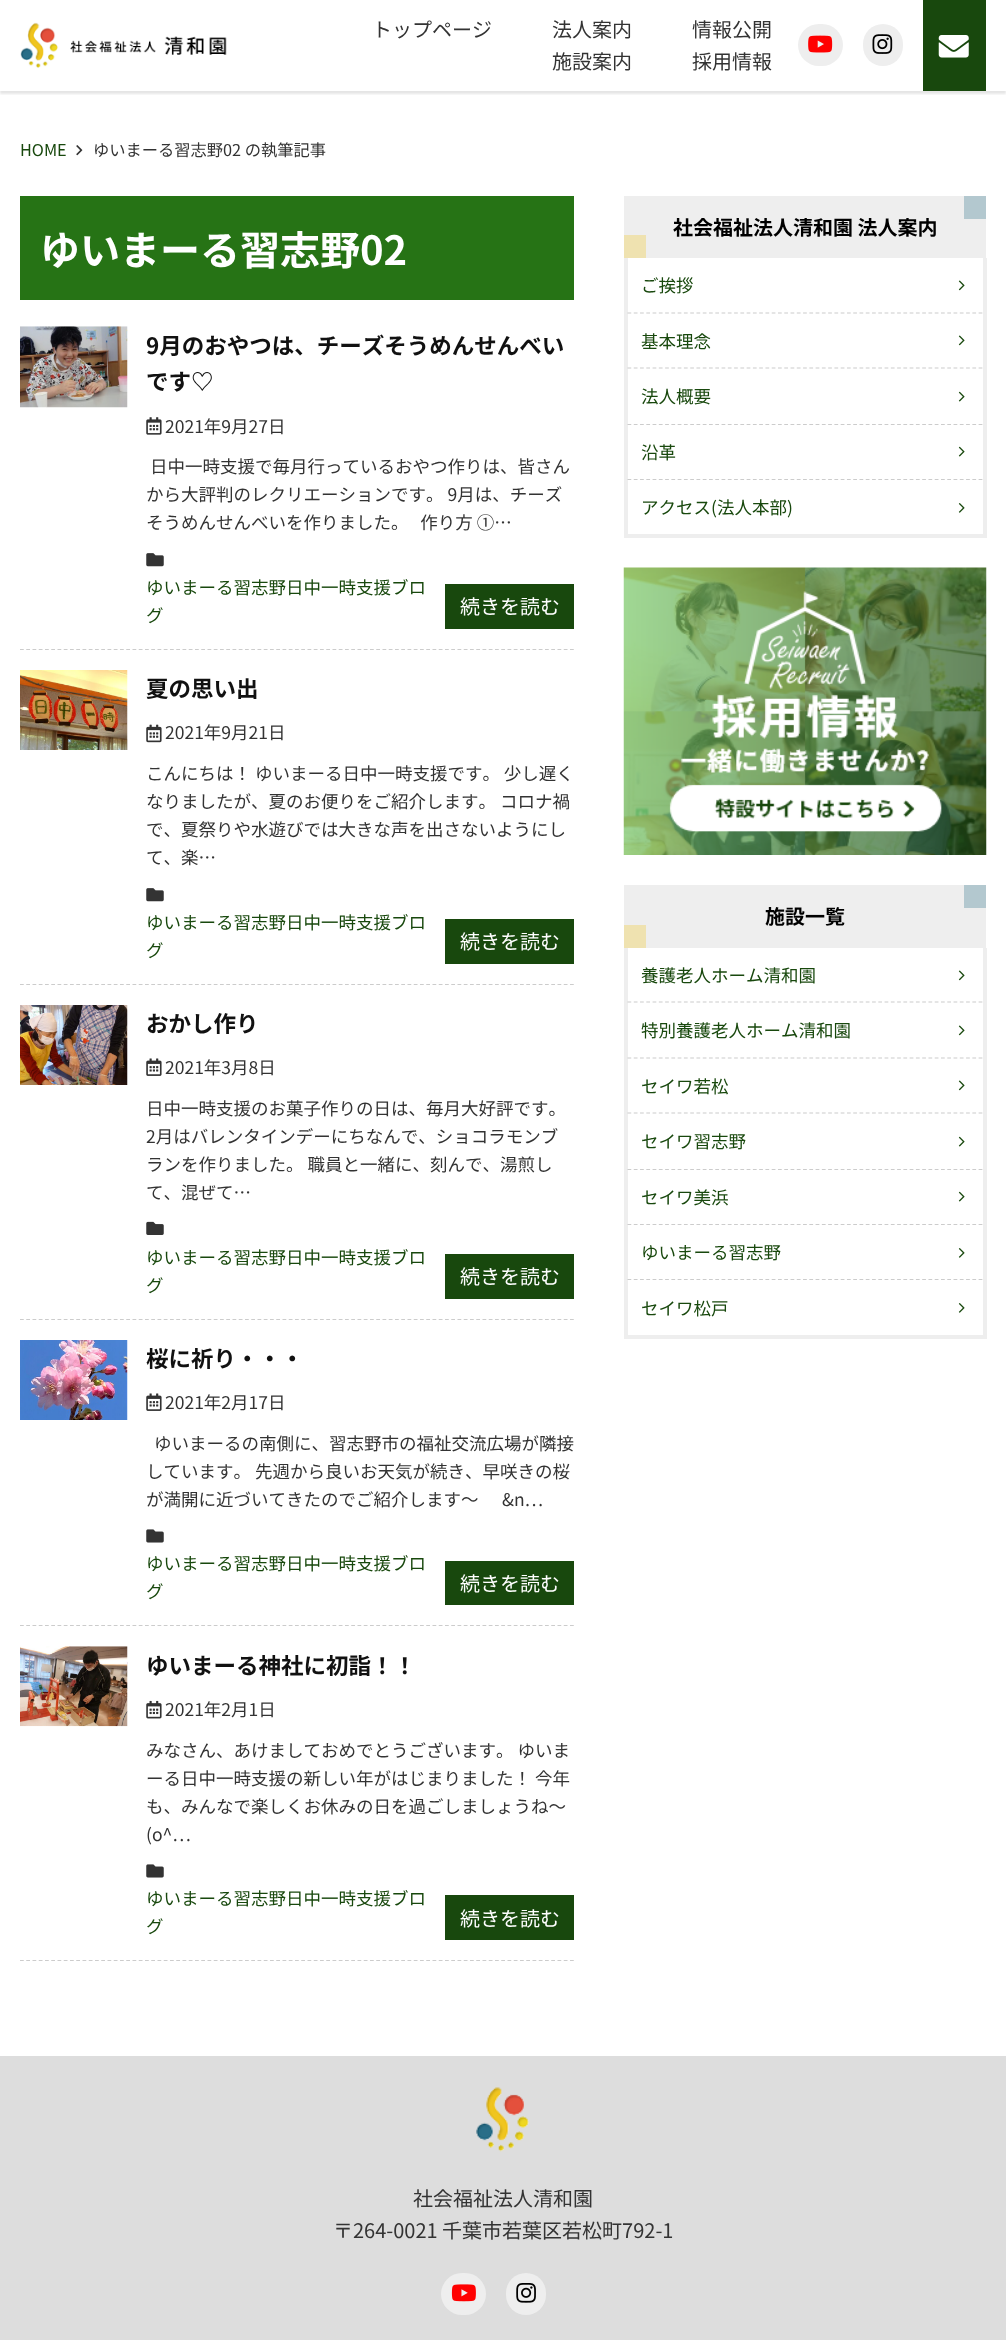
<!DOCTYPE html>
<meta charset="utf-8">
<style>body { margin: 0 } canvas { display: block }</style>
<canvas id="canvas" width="1006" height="2340"></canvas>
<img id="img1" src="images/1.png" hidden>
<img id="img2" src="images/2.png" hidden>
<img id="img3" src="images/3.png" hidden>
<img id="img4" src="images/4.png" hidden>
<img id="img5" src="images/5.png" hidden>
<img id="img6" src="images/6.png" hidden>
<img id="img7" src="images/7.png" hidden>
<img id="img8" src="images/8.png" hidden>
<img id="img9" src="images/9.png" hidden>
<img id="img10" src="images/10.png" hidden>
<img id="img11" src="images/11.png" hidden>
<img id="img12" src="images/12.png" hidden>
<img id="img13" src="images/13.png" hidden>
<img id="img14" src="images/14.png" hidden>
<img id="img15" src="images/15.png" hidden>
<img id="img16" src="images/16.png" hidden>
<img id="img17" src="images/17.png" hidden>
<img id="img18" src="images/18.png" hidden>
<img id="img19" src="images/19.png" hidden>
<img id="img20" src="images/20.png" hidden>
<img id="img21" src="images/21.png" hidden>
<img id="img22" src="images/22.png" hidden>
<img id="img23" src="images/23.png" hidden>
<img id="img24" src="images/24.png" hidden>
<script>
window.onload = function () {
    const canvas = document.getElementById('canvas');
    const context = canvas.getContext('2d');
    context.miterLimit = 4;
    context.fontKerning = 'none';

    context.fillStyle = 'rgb(255, 255, 255)';
    context.fillRect(0, 0, 1006, 2340);
    context.save();
    context.beginPath();
    context.rect(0, 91, 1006, 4);
    context.clip();
    context.fillStyle = 'rgba(0, 0, 0, 0.1)';
    context.filter = 'blur(1px)';
    context.beginPath();
    context.rect(0, 3, 1006, 91);
    context.fill();
    context.filter = 'none';
    context.restore();
    context.drawImage(document.getElementById('img1'), 20, 22, 207, 46);
    context.fillStyle = 'rgb(238, 238, 238)';
    context.beginPath();
    context.roundRect(798, 24, 45, 42, 21);
    context.fill();
    context.drawImage(document.getElementById('img2'), 808, 35, 25, 18);
    context.beginPath();
    context.roundRect(863, 24, 40, 42, 20);
    context.fill();
    context.drawImage(document.getElementById('img3'), 872, 34, 21, 20);
    context.fillStyle = 'rgb(24, 72, 13)';
    context.fillRect(923, 0, 63, 91);
    context.drawImage(document.getElementById('img4'), 938, 35, 31, 23);
    context.drawImage(document.getElementById('img5'), 76, 145, 7, 11);
    context.fillStyle = 'rgb(38, 115, 21)';
    context.fillRect(20, 196, 554, 104);
    context.beginPath();
    context.moveTo(20, 649.5);
    context.lineTo(574, 649.5);
    context.strokeStyle = 'rgb(204, 204, 204)';
    context.lineWidth = 1.2;
    context.setLineDash([3.75, 2.5]);
    context.stroke();
    context.drawImage(document.getElementById('img6'), 20, 326, 108, 82);
    context.drawImage(document.getElementById('img7'), 146, 417, 16, 18);
    context.drawImage(document.getElementById('img8'), 146, 553, 18, 14);
    context.fillStyle = 'rgb(24, 72, 13)';
    context.fillRect(445, 584, 129, 45);
    context.beginPath();
    context.moveTo(20, 984.5);
    context.lineTo(574, 984.5);
    context.stroke();
    context.drawImage(document.getElementById('img9'), 20, 670, 108, 80);
    context.drawImage(document.getElementById('img10'), 146, 724, 16, 19);
    context.drawImage(document.getElementById('img8'), 146, 888, 18, 14);
    context.fillRect(445, 919, 129, 45);
    context.beginPath();
    context.moveTo(20, 1319.5);
    context.lineTo(574, 1319.5);
    context.stroke();
    context.drawImage(document.getElementById('img11'), 20, 1005, 108, 80);
    context.drawImage(document.getElementById('img12'), 146, 1058, 16, 18);
    context.drawImage(document.getElementById('img13'), 146, 1221, 18, 14);
    context.fillRect(445, 1254, 129, 45);
    context.beginPath();
    context.moveTo(20, 1625.5);
    context.lineTo(574, 1625.5);
    context.stroke();
    context.drawImage(document.getElementById('img14'), 20, 1340, 108, 80);
    context.drawImage(document.getElementById('img12'), 146, 1393, 16, 18);
    context.drawImage(document.getElementById('img15'), 146, 1529, 18, 14);
    context.fillRect(445, 1561, 129, 44);
    context.beginPath();
    context.moveTo(20, 1960.5);
    context.lineTo(574, 1960.5);
    context.stroke();
    context.drawImage(document.getElementById('img16'), 20, 1646, 108, 81);
    context.drawImage(document.getElementById('img17'), 146, 1700, 16, 19);
    context.drawImage(document.getElementById('img15'), 146, 1864, 18, 14);
    context.fillRect(445, 1895, 129, 45);
    context.fillStyle = 'rgb(238, 238, 238)';
    context.fillRect(624, 196, 362, 62);
    context.fillStyle = 'rgb(179, 200, 207)';
    context.fillRect(964, 196, 22, 23);
    context.fillStyle = 'rgb(239, 226, 176)';
    context.fillRect(624, 235, 22, 23);
    context.fillStyle = 'rgb(238, 238, 238)';
    context.fillRect(983, 258, 4, 280);
    context.fillRect(624, 534, 362, 4);
    context.fillRect(624, 258, 4, 280);
    context.beginPath();
    context.moveTo(627.5, 313);
    context.lineTo(982.5, 313);
    context.setLineDash([3.75, 2.52]);
    context.stroke();
    context.drawImage(document.getElementById('img18'), 958, 280, 7, 11);
    context.beginPath();
    context.moveTo(627.5, 368);
    context.lineTo(982.5, 368);
    context.stroke();
    context.drawImage(document.getElementById('img18'), 958, 335, 7, 11);
    context.beginPath();
    context.moveTo(627.5, 424.5);
    context.lineTo(982.5, 424.5);
    context.stroke();
    context.drawImage(document.getElementById('img19'), 958, 391, 7, 11);
    context.beginPath();
    context.moveTo(627.5, 479.5);
    context.lineTo(982.5, 479.5);
    context.stroke();
    context.drawImage(document.getElementById('img19'), 958, 446, 7, 11);
    context.drawImage(document.getElementById('img20'), 958, 503, 7, 10);
    context.drawImage(document.getElementById('img21'), 623, 567, 364, 288);
    context.fillRect(624, 885, 362, 63);
    context.fillStyle = 'rgb(179, 200, 207)';
    context.fillRect(964, 885, 22, 23);
    context.fillStyle = 'rgb(239, 226, 176)';
    context.fillRect(624, 925, 22, 23);
    context.fillStyle = 'rgb(238, 238, 238)';
    context.fillRect(983, 948, 4, 391);
    context.fillRect(624, 1335, 362, 4);
    context.fillRect(624, 948, 4, 391);
    context.beginPath();
    context.moveTo(627.5, 1002);
    context.lineTo(982.5, 1002);
    context.stroke();
    context.drawImage(document.getElementById('img18'), 958, 970, 7, 11);
    context.beginPath();
    context.moveTo(627.5, 1058);
    context.lineTo(982.5, 1058);
    context.stroke();
    context.drawImage(document.getElementById('img18'), 958, 1025, 7, 11);
    context.beginPath();
    context.moveTo(627.5, 1113);
    context.lineTo(982.5, 1113);
    context.stroke();
    context.drawImage(document.getElementById('img18'), 958, 1080, 7, 11);
    context.beginPath();
    context.moveTo(627.5, 1169.5);
    context.lineTo(982.5, 1169.5);
    context.stroke();
    context.drawImage(document.getElementById('img19'), 958, 1136, 7, 11);
    context.beginPath();
    context.moveTo(627.5, 1224.5);
    context.lineTo(982.5, 1224.5);
    context.stroke();
    context.drawImage(document.getElementById('img19'), 958, 1191, 7, 11);
    context.beginPath();
    context.moveTo(627.5, 1279.5);
    context.lineTo(982.5, 1279.5);
    context.stroke();
    context.drawImage(document.getElementById('img20'), 958, 1248, 7, 10);
    context.drawImage(document.getElementById('img20'), 958, 1303, 7, 10);
    context.fillStyle = 'rgb(221, 221, 221)';
    context.fillRect(0, 2056, 1006, 284);
    context.drawImage(document.getElementById('img22'), 476, 2087, 53, 65);
    context.fillStyle = 'rgb(238, 238, 238)';
    context.beginPath();
    context.roundRect(441, 2273, 45, 42, 21);
    context.fill();
    context.drawImage(document.getElementById('img23'), 451, 2284, 25, 18);
    context.beginPath();
    context.roundRect(506, 2273, 40, 42, 20);
    context.fill();
    context.drawImage(document.getElementById('img24'), 516, 2283, 20, 20);
    context.font = '20px Noto Sans JP';
    context.fillStyle = 'rgb(51, 51, 51)';
    context.fillText('トップページ', 372, 37);
    context.fillText('法人案内', 552, 37);
    context.fillText('情報公開', 692, 37);
    context.fillText('施設案内', 552, 69);
    context.fillText('採用情報', 692, 69);
    context.font = '16.25px Noto Sans JP';
    context.fillStyle = 'rgb(24, 72, 13)';
    context.fillText('HOME', 20, 156);
    context.fillStyle = 'rgb(51, 51, 51)';
    context.fillText('ゆいまーる習志野02 の執筆記事', 93, 156);
    context.font = 'bold 40px Noto Sans JP';
    context.fillStyle = 'rgb(255, 255, 255)';
    context.fillText('ゆいまーる習志野02', 40, 265);
    context.font = 'bold 22.5px Noto Sans JP';
    context.fillStyle = 'rgb(17, 17, 17)';
    context.fillText('9月のおやつは、チーズそうめんせんべい', 146, 354);
    context.fillText('です♡', 146, 390);
    context.font = '17.5px Noto Sans JP';
    context.fillStyle = 'rgb(51, 51, 51)';
    context.fillText('2021年9月27日', 165, 433);
    context.fillText('日中一時支援で毎月行っているおやつ作りは、皆さん', 150, 473);
    context.fillText('から大評判のレクリエーションです。 9月は、チーズ', 146, 501);
    context.fillText('そうめんせんべいを作りました。   作り方 ①…', 146, 529);
    context.fillStyle = 'rgb(24, 72, 13)';
    context.fillText('ゆいまーる習志野日中一時支援ブロ', 146, 594);
    context.fillText('グ', 146, 622);
    context.font = '20px Noto Sans JP';
    context.fillStyle = 'rgb(255, 255, 255)';
    context.fillText('続きを読む', 460, 614);
    context.font = 'bold 22.5px Noto Sans JP';
    context.fillStyle = 'rgb(17, 17, 17)';
    context.fillText('夏の思い出', 146, 697);
    context.font = '17.5px Noto Sans JP';
    context.fillStyle = 'rgb(51, 51, 51)';
    context.fillText('2021年9月21日', 165, 739);
    context.fillText('こんにちは！ ゆいまーる日中一時支援です。 少し遅く', 146, 780);
    context.fillText('なりましたが、夏のお便りをご紹介します。 コロナ禍', 146, 808);
    context.fillText('で、夏祭りや水遊びでは大きな声を出さないようにし', 146, 836);
    context.fillText('て、楽…', 146, 864);
    context.fillStyle = 'rgb(24, 72, 13)';
    context.fillText('ゆいまーる習志野日中一時支援ブロ', 146, 929);
    context.fillText('グ', 146, 957);
    context.font = '20px Noto Sans JP';
    context.fillStyle = 'rgb(255, 255, 255)';
    context.fillText('続きを読む', 460, 949);
    context.font = 'bold 22.5px Noto Sans JP';
    context.fillStyle = 'rgb(17, 17, 17)';
    context.fillText('おかし作り', 146, 1032);
    context.font = '17.5px Noto Sans JP';
    context.fillStyle = 'rgb(51, 51, 51)';
    context.fillText('2021年3月8日', 165, 1074);
    context.fillText('日中一時支援のお菓子作りの日は、毎月大好評です。', 146, 1115);
    context.fillText('2月はバレンタインデーにちなんで、ショコラモンブ', 146, 1143);
    context.fillText('ランを作りました。 職員と一緒に、刻んで、湯煎し', 146, 1171);
    context.fillText('て、混ぜて…', 146, 1199);
    context.fillStyle = 'rgb(24, 72, 13)';
    context.fillText('ゆいまーる習志野日中一時支援ブロ', 146, 1264);
    context.fillText('グ', 146, 1292);
    context.font = '20px Noto Sans JP';
    context.fillStyle = 'rgb(255, 255, 255)';
    context.fillText('続きを読む', 460, 1284);
    context.font = 'bold 22.5px Noto Sans JP';
    context.fillStyle = 'rgb(17, 17, 17)';
    context.fillText('桜に祈り・・・', 146, 1367);
    context.font = '17.5px Noto Sans JP';
    context.fillStyle = 'rgb(51, 51, 51)';
    context.fillText('2021年2月17日', 165, 1409);
    context.fillText('ゆいまーるの南側に、習志野市の福祉交流広場が隣接', 154, 1450);
    context.fillText('しています。 先週から良いお天気が続き、早咲きの桜', 146, 1478);
    context.fillText('が満開に近づいてきたのでご紹介します～      &n…', 146, 1506);
    context.fillStyle = 'rgb(24, 72, 13)';
    context.fillText('ゆいまーる習志野日中一時支援ブロ', 146, 1570);
    context.fillText('グ', 146, 1598);
    context.font = '20px Noto Sans JP';
    context.fillStyle = 'rgb(255, 255, 255)';
    context.fillText('続きを読む', 460, 1591);
    context.font = 'bold 22.5px Noto Sans JP';
    context.fillStyle = 'rgb(17, 17, 17)';
    context.fillText('ゆいまーる神社に初詣！！', 146, 1674);
    context.font = '17.5px Noto Sans JP';
    context.fillStyle = 'rgb(51, 51, 51)';
    context.fillText('2021年2月1日', 165, 1716);
    context.fillText('みなさん、あけましておめでとうございます。 ゆいま', 146, 1757);
    context.fillText('ーる日中一時支援の新しい年がはじまりました！ 今年', 146, 1785);
    context.fillText('も、みんなで楽しくお休みの日を過ごしましょうね～', 146, 1813);
    context.fillText('(o^…', 146, 1841);
    context.fillStyle = 'rgb(24, 72, 13)';
    context.fillText('ゆいまーる習志野日中一時支援ブロ', 146, 1905);
    context.fillText('グ', 146, 1933);
    context.font = '20px Noto Sans JP';
    context.fillStyle = 'rgb(255, 255, 255)';
    context.fillText('続きを読む', 460, 1926);
    context.font = 'bold 20px Noto Sans JP';
    context.fillStyle = 'rgb(0, 0, 0)';
    context.fillText('社会福祉法人清和園 法人案内', 673, 235);
    context.font = '17.5px Noto Sans JP';
    context.fillStyle = 'rgb(24, 72, 13)';
    context.fillText('ご挨拶', 641, 292);
    context.fillText('基本理念', 641, 348);
    context.fillText('法人概要', 641, 403);
    context.fillText('沿革', 641, 459);
    context.fillText('アクセス(法人本部)', 641, 514);
    context.font = 'bold 20px Noto Sans JP';
    context.fillStyle = 'rgb(0, 0, 0)';
    context.fillText('施設一覧', 765, 924);
    context.font = '17.5px Noto Sans JP';
    context.fillStyle = 'rgb(24, 72, 13)';
    context.fillText('養護老人ホーム清和園', 641, 982);
    context.fillText('特別養護老人ホーム清和園', 641, 1037);
    context.fillText('セイワ若松', 641, 1093);
    context.fillText('セイワ習志野', 641, 1148);
    context.fillText('セイワ美浜', 641, 1204);
    context.fillText('ゆいまーる習志野', 641, 1259);
    context.fillText('セイワ松戸', 641, 1315);
    context.font = '20px Noto Sans JP';
    context.fillStyle = 'rgb(51, 51, 51)';
    context.fillText('社会福祉法人清和園', 413, 2206);
    context.fillText('〒264-0021 千葉市若葉区若松町792-1', 333, 2238);
};
</script>
